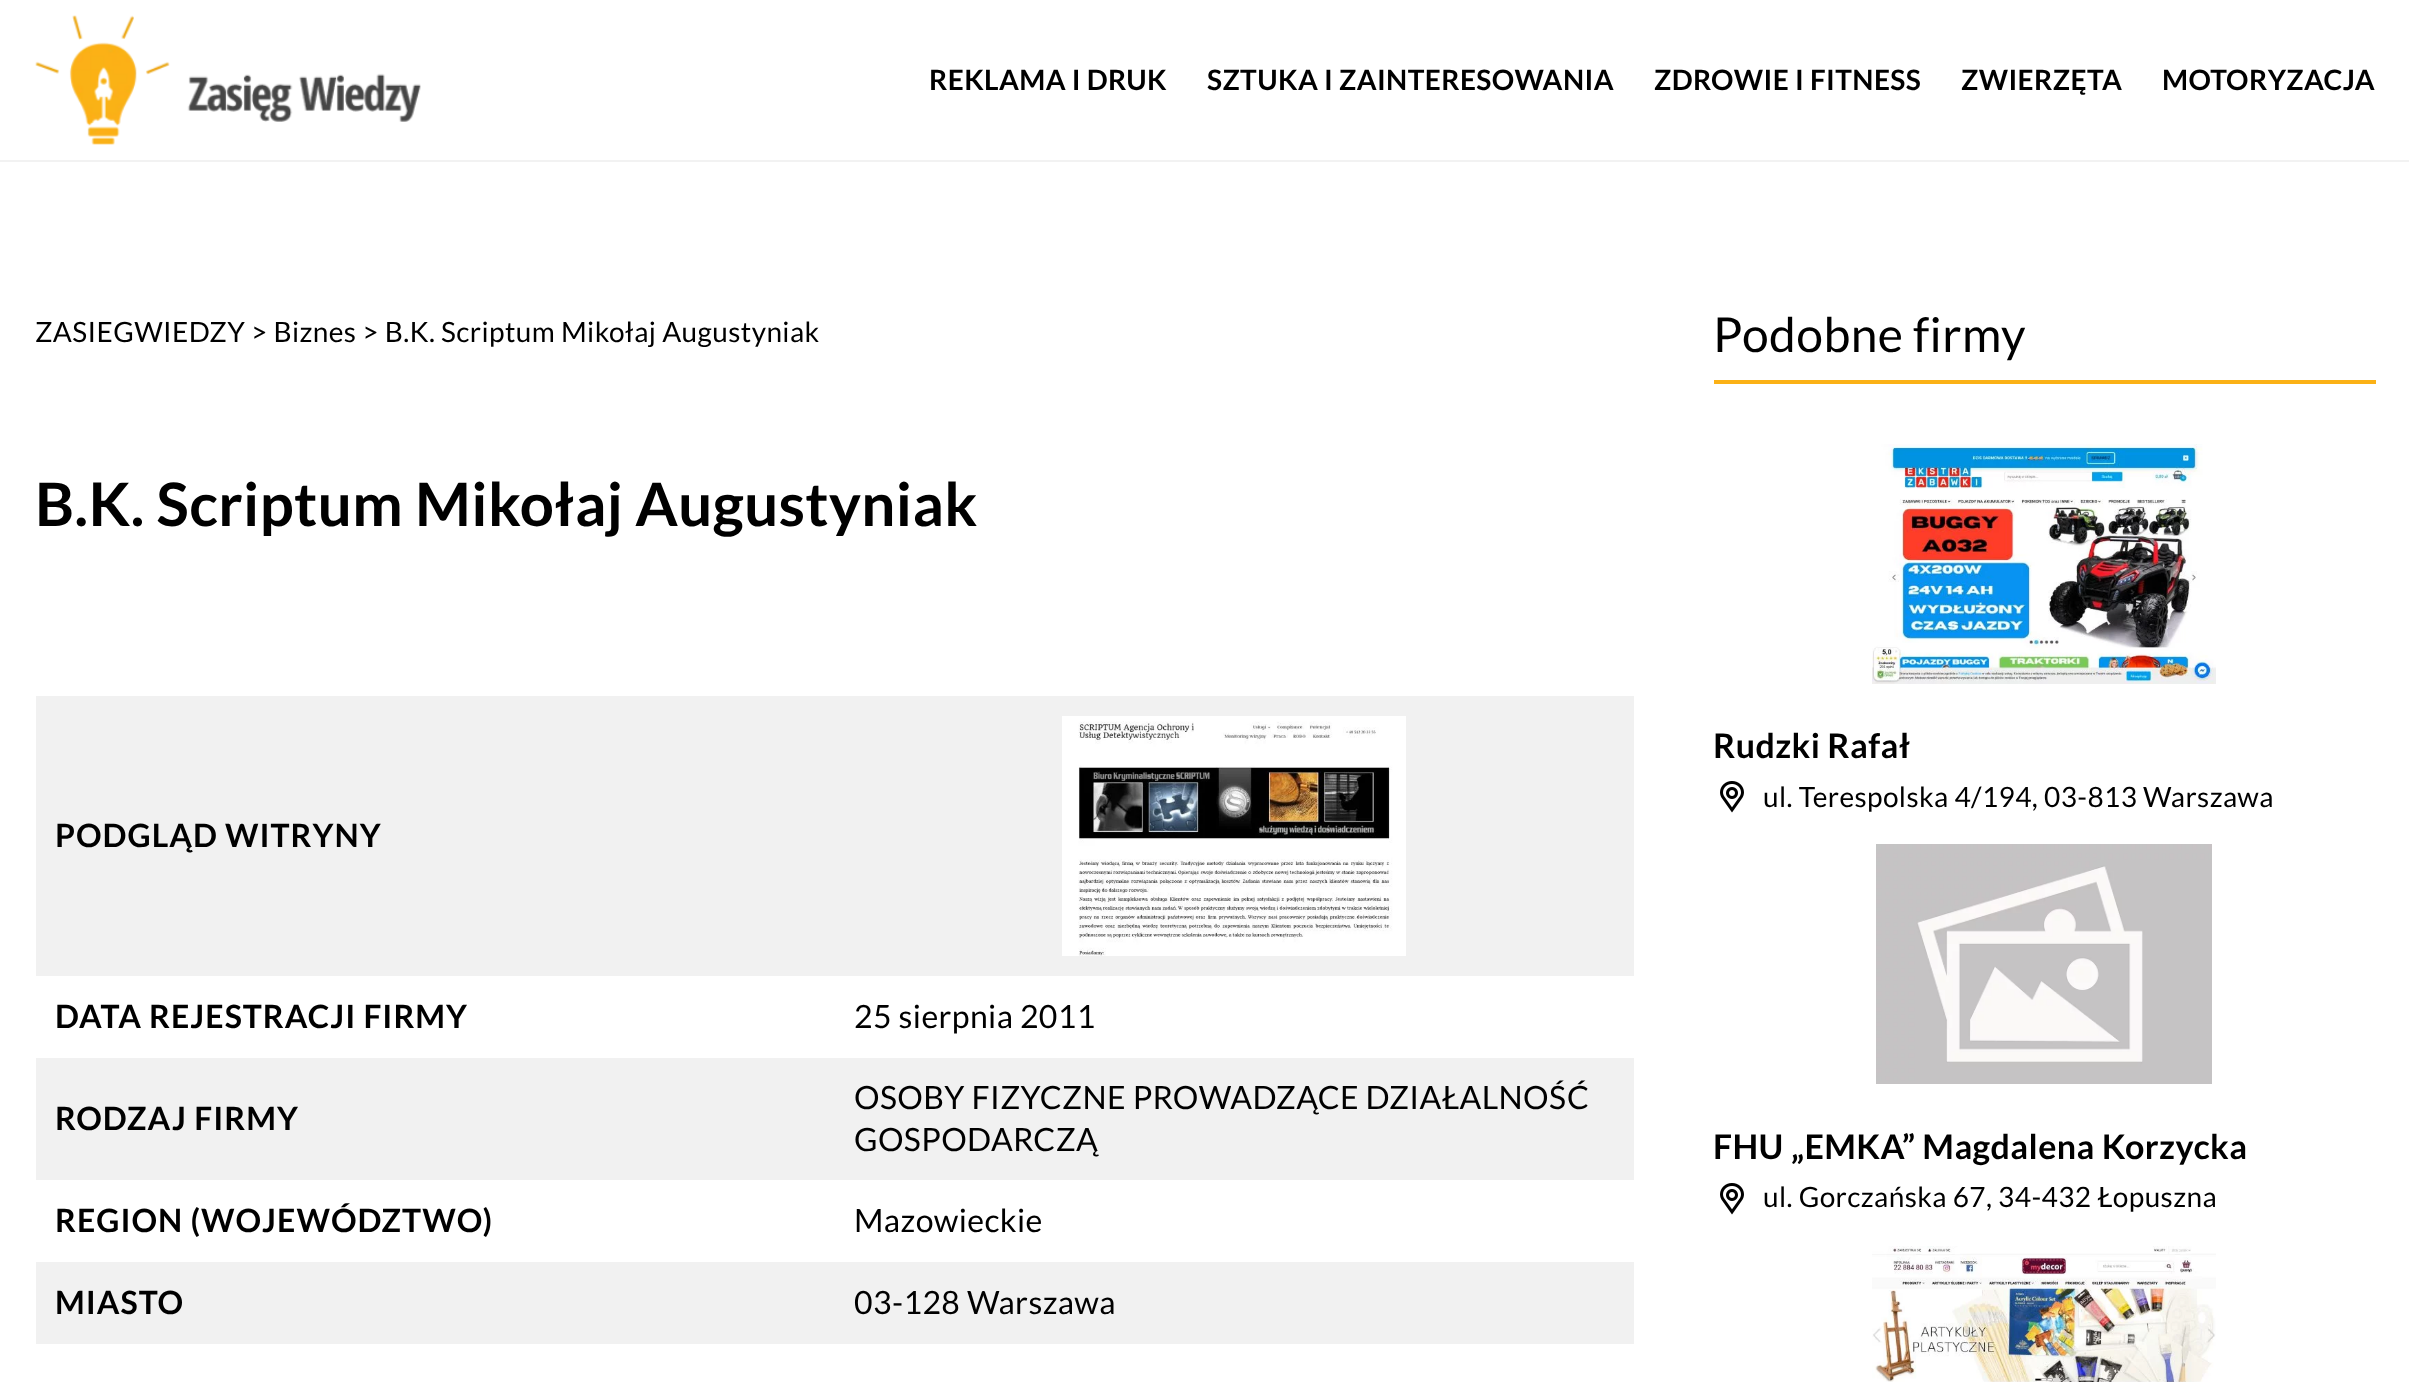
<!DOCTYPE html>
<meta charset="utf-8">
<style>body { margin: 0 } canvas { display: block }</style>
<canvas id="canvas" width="2409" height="1382"></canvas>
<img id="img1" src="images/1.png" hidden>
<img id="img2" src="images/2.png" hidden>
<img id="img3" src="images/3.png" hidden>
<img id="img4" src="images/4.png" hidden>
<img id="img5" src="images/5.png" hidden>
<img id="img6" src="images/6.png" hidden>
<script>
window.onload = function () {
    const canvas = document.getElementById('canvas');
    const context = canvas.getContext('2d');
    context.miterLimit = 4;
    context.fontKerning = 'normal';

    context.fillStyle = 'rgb(255, 255, 255)';
    context.fillRect(0, 0, 2409, 1382);
    context.fillStyle = 'rgb(242, 242, 242)';
    context.fillRect(0, 160, 2409, 2);
    context.drawImage(document.getElementById('img1'), 35, 15, 386, 130);
    context.fillStyle = 'rgb(241, 241, 241)';
    context.fillRect(36, 696, 1598, 280);
    context.drawImage(document.getElementById('img2'), 1062, 716, 344, 240);
    context.fillRect(36, 1058, 1598, 122);
    context.fillRect(36, 1262, 1598, 82);
    context.fillStyle = 'rgb(251, 177, 22)';
    context.fillRect(1714, 380, 662, 4);
    context.drawImage(document.getElementById('img3'), 1872, 444, 344, 240);
    context.drawImage(document.getElementById('img4'), 1720, 781, 24, 32);
    context.drawImage(document.getElementById('img5'), 1876, 844, 336, 240);
    context.drawImage(document.getElementById('img4'), 1720, 1183, 24, 32);
    context.drawImage(document.getElementById('img6'), 1872, 1246, 344, 136);
    context.letterSpacing = '0.4px';
    context.font = 'bold 28px Lato';
    context.fillStyle = 'rgb(0, 0, 0)';
    context.fillText('REKLAMA I DRUK', 929, 90);
    context.fillText('SZTUKA I ZAINTERESOWANIA', 1207, 90);
    context.fillText('ZDROWIE I FITNESS', 1654, 90);
    context.fillText('ZWIERZĘTA', 1961, 90);
    context.fillText('MOTORYZACJA', 2162, 90);
    context.font = '28px Lato';
    context.fillText('ZASIEGWIEDZY > Biznes > B.K. Scriptum Mikołaj Augustyniak', 35, 342);
    context.font = 'bold 60px Lato';
    context.fillText('B.K. Scriptum Mikołaj Augustyniak', 35, 526);
    context.letterSpacing = '1px';
    context.font = 'bold 32px Lato';
    context.fillText('PODGLĄD WITRYNY', 55, 847);
    context.fillText('DATA REJESTRACJI FIRMY', 55, 1028);
    context.letterSpacing = '0.4px';
    context.font = '32px Lato';
    context.fillText('25 sierpnia 2011', 854, 1028);
    context.letterSpacing = '1px';
    context.font = 'bold 32px Lato';
    context.fillText('RODZAJ FIRMY', 55, 1130);
    context.letterSpacing = '0.4px';
    context.font = '32px Lato';
    context.fillText('OSOBY FIZYCZNE PROWADZĄCE DZIAŁALNOŚĆ', 854, 1109);
    context.fillText('GOSPODARCZĄ', 854, 1151);
    context.letterSpacing = '1px';
    context.font = 'bold 32px Lato';
    context.fillText('REGION (WOJEWÓDZTWO)', 55, 1232);
    context.letterSpacing = '0.4px';
    context.font = '32px Lato';
    context.fillText('Mazowieckie', 854, 1232);
    context.letterSpacing = '1px';
    context.font = 'bold 32px Lato';
    context.fillText('MIASTO', 55, 1314);
    context.letterSpacing = '0.4px';
    context.font = '32px Lato';
    context.fillText('03-128 Warszawa', 854, 1314);
    context.font = '48px Lato';
    context.fillText('Podobne firmy', 1713, 352);
    context.font = 'bold 34px Lato';
    context.fillText('Rudzki Rafał', 1713, 758);
    context.font = '28px Lato';
    context.fillText('ul. Terespolska 4/194, 03-813 Warszawa', 1763, 807);
    context.font = 'bold 34px Lato';
    context.fillText('FHU „EMKA” Magdalena Korzycka', 1713, 1159);
    context.font = '28px Lato';
    context.fillText('ul. Gorczańska 67, 34-432 Łopuszna', 1763, 1207);
};
</script>
